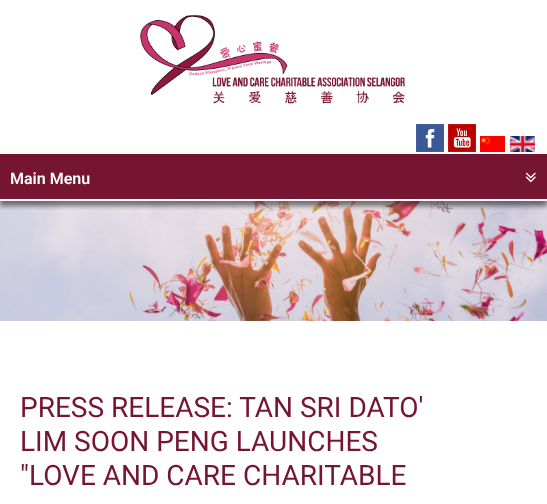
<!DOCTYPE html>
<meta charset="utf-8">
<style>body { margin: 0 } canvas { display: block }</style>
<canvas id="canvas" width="547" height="504"></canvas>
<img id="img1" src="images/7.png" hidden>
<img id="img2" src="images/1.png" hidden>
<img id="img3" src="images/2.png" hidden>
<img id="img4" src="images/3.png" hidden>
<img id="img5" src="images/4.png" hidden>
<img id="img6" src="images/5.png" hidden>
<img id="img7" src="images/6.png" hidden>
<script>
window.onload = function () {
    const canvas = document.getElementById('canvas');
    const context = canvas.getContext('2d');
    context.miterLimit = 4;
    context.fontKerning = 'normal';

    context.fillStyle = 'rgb(255, 255, 255)';
    context.fillRect(0, 0, 547, 504);
    context.drawImage(document.getElementById('img1'), 0, 201, 547, 120);
    context.save();
    context.beginPath();
    context.rect(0, 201, 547, 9);
    context.clip();
    context.fillStyle = 'rgba(0, 0, 0, 0.5)';
    context.filter = 'blur(2.5px)';
    context.beginPath();
    context.rect(0, 15, 547, 191);
    context.fill();
    context.filter = 'none';
    context.restore();
    context.drawImage(document.getElementById('img2'), 140, 14, 265, 90);
    context.drawImage(document.getElementById('img3'), 416, 124, 28, 28);
    context.drawImage(document.getElementById('img4'), 448, 124, 28, 28);
    context.drawImage(document.getElementById('img5'), 480, 136, 25, 16);
    context.drawImage(document.getElementById('img6'), 510, 136, 25, 16);
    context.fillStyle = 'rgb(118, 21, 49)';
    context.fillRect(0, 154, 547, 45);
    context.drawImage(document.getElementById('img7'), 525, 172, 11, 11);
    context.font = '600 16px Roboto';
    context.fillStyle = 'rgb(255, 255, 255)';
    context.fillText('Main Menu', 10, 184);
    context.font = '28px Roboto';
    context.fillStyle = 'rgb(118, 21, 49)';
    context.fillText('PRESS RELEASE: TAN SRI DATO\'', 20, 417);
    context.fillText('LIM SOON PENG LAUNCHES', 20, 451);
    context.fillText('"LOVE AND CARE CHARITABLE', 20, 485);
};
</script>
